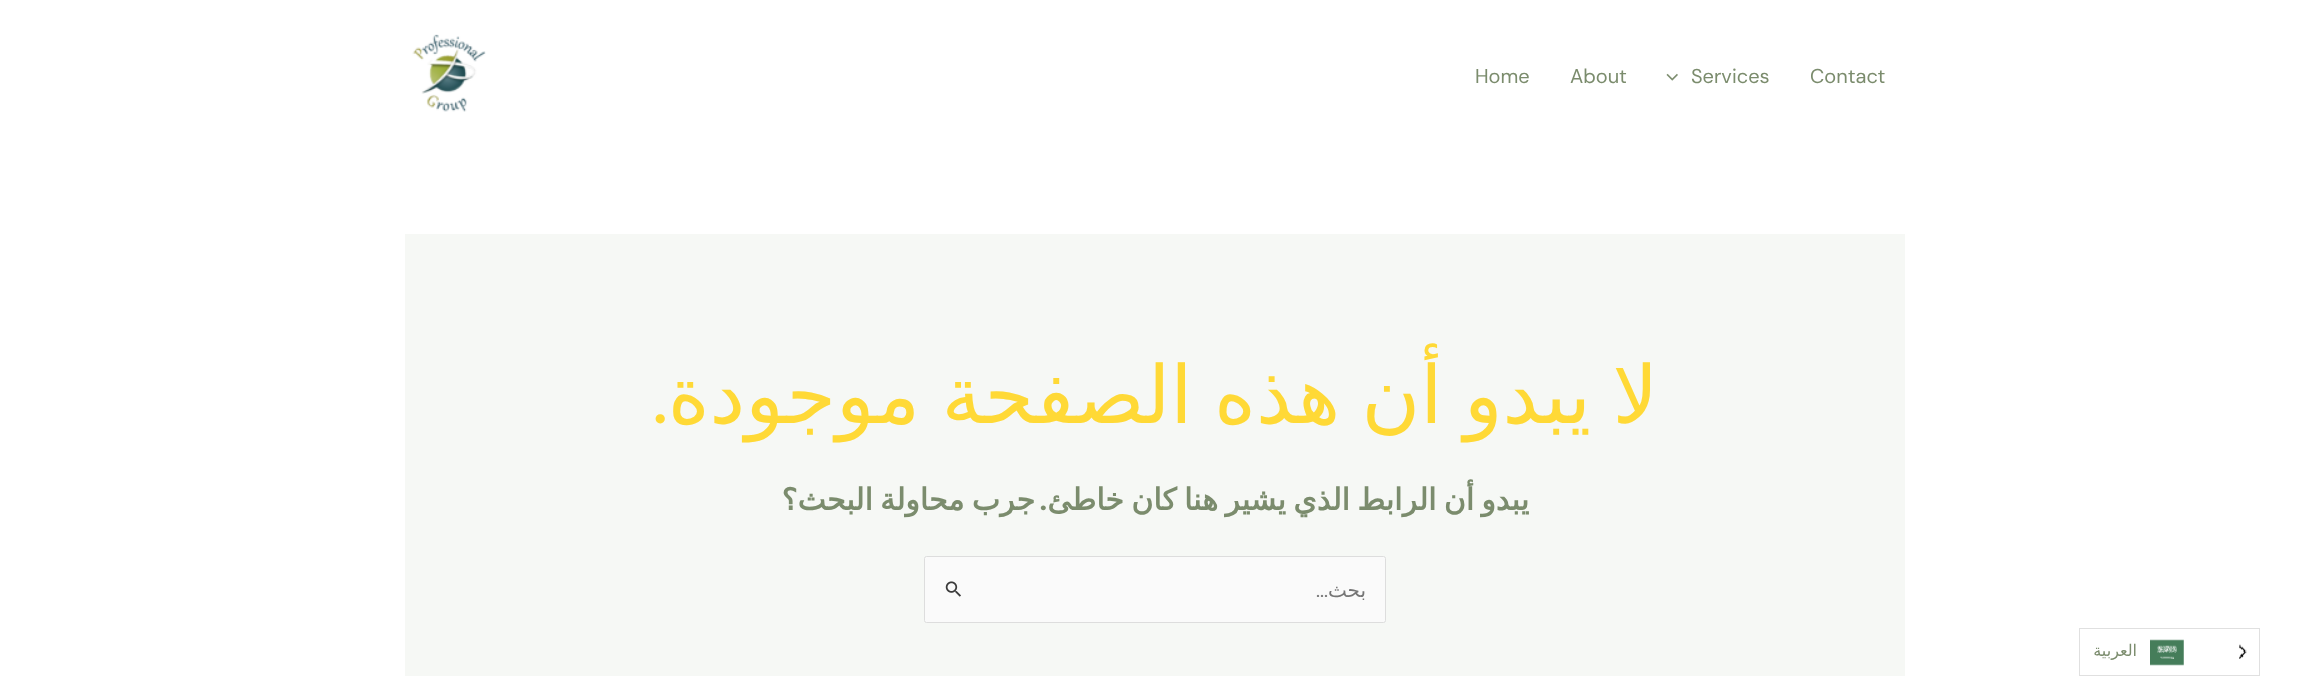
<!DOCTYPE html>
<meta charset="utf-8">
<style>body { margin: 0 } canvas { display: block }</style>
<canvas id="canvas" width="2310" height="676"></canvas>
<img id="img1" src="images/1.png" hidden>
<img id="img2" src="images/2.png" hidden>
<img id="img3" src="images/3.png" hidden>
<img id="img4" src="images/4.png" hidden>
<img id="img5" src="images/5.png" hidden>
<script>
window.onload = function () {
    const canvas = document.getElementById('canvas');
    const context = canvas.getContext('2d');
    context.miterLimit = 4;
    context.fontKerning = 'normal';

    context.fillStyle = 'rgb(255, 255, 255)';
    context.fillRect(0, 0, 2310, 676);
    context.drawImage(document.getElementById('img1'), 1666, 73, 12, 8);
    context.drawImage(document.getElementById('img2'), 412, 34, 74, 78);
    context.fillStyle = 'rgb(246, 248, 245)';
    context.fillRect(405, 234, 1500, 442);
    context.fillStyle = 'rgb(250, 250, 250)';
    context.beginPath();
    context.roundRect(924.5, 556.5, 461, 66, 2);
    context.fill();
    context.strokeStyle = 'rgb(221, 221, 221)';
    context.stroke();
    context.drawImage(document.getElementById('img3'), 945, 581, 16, 16);
    context.strokeStyle = 'rgb(224, 224, 224)';
    context.strokeRect(2079.5, 628.5, 180, 47);
    context.drawImage(document.getElementById('img4'), 2239, 644, 8, 15);
    context.drawImage(document.getElementById('img5'), 2150, 639, 34, 27);
    context.font = '20px DM Sans';
    context.fillStyle = 'rgb(123, 140, 109)';
    context.fillText('Contact', 1810, 83);
    context.fillText('Services', 1691, 83);
    context.fillText('About', 1570, 83);
    context.fillText('Home', 1475, 83);
    context.wordSpacing = '-4px';
    context.direction = 'rtl';
    context.font = '80px DejaVu Sans';
    context.fillStyle = 'rgb(255, 217, 54)';
    context.fillText('لا يبدو أن هذه الصفحة موجودة', 1658, 423);
    context.wordSpacing = '0px';
    context.font = '80px DM Sans';
    context.fillText('.', 668, 423);
    context.wordSpacing = '-2.25px';
    context.font = 'bold 30px DejaVu Sans';
    context.fillStyle = 'rgb(123, 140, 109)';
    context.fillText('يبدو أن الرابط الذي يشير هنا كان خاطئ', 1529, 510);
    context.wordSpacing = '0px';
    context.font = 'bold 30px DM Sans';
    context.fillText('.', 1047, 510);
    context.wordSpacing = '-2.25px';
    context.font = 'bold 30px DejaVu Sans';
    context.fillText('جرب محاولة البحث؟', 1035, 510);
    context.wordSpacing = '0px';
    context.font = '20px DejaVu Sans';
    context.fillStyle = 'rgb(117, 117, 117)';
    context.fillText('بحث', 1366, 597);
    context.font = '20px DM Sans';
    context.fillText('...', 1328, 597);
    context.font = '16px DejaVu Sans';
    context.fillStyle = 'rgb(123, 140, 109)';
    context.fillText('العربية', 2137, 656);
};
</script>
